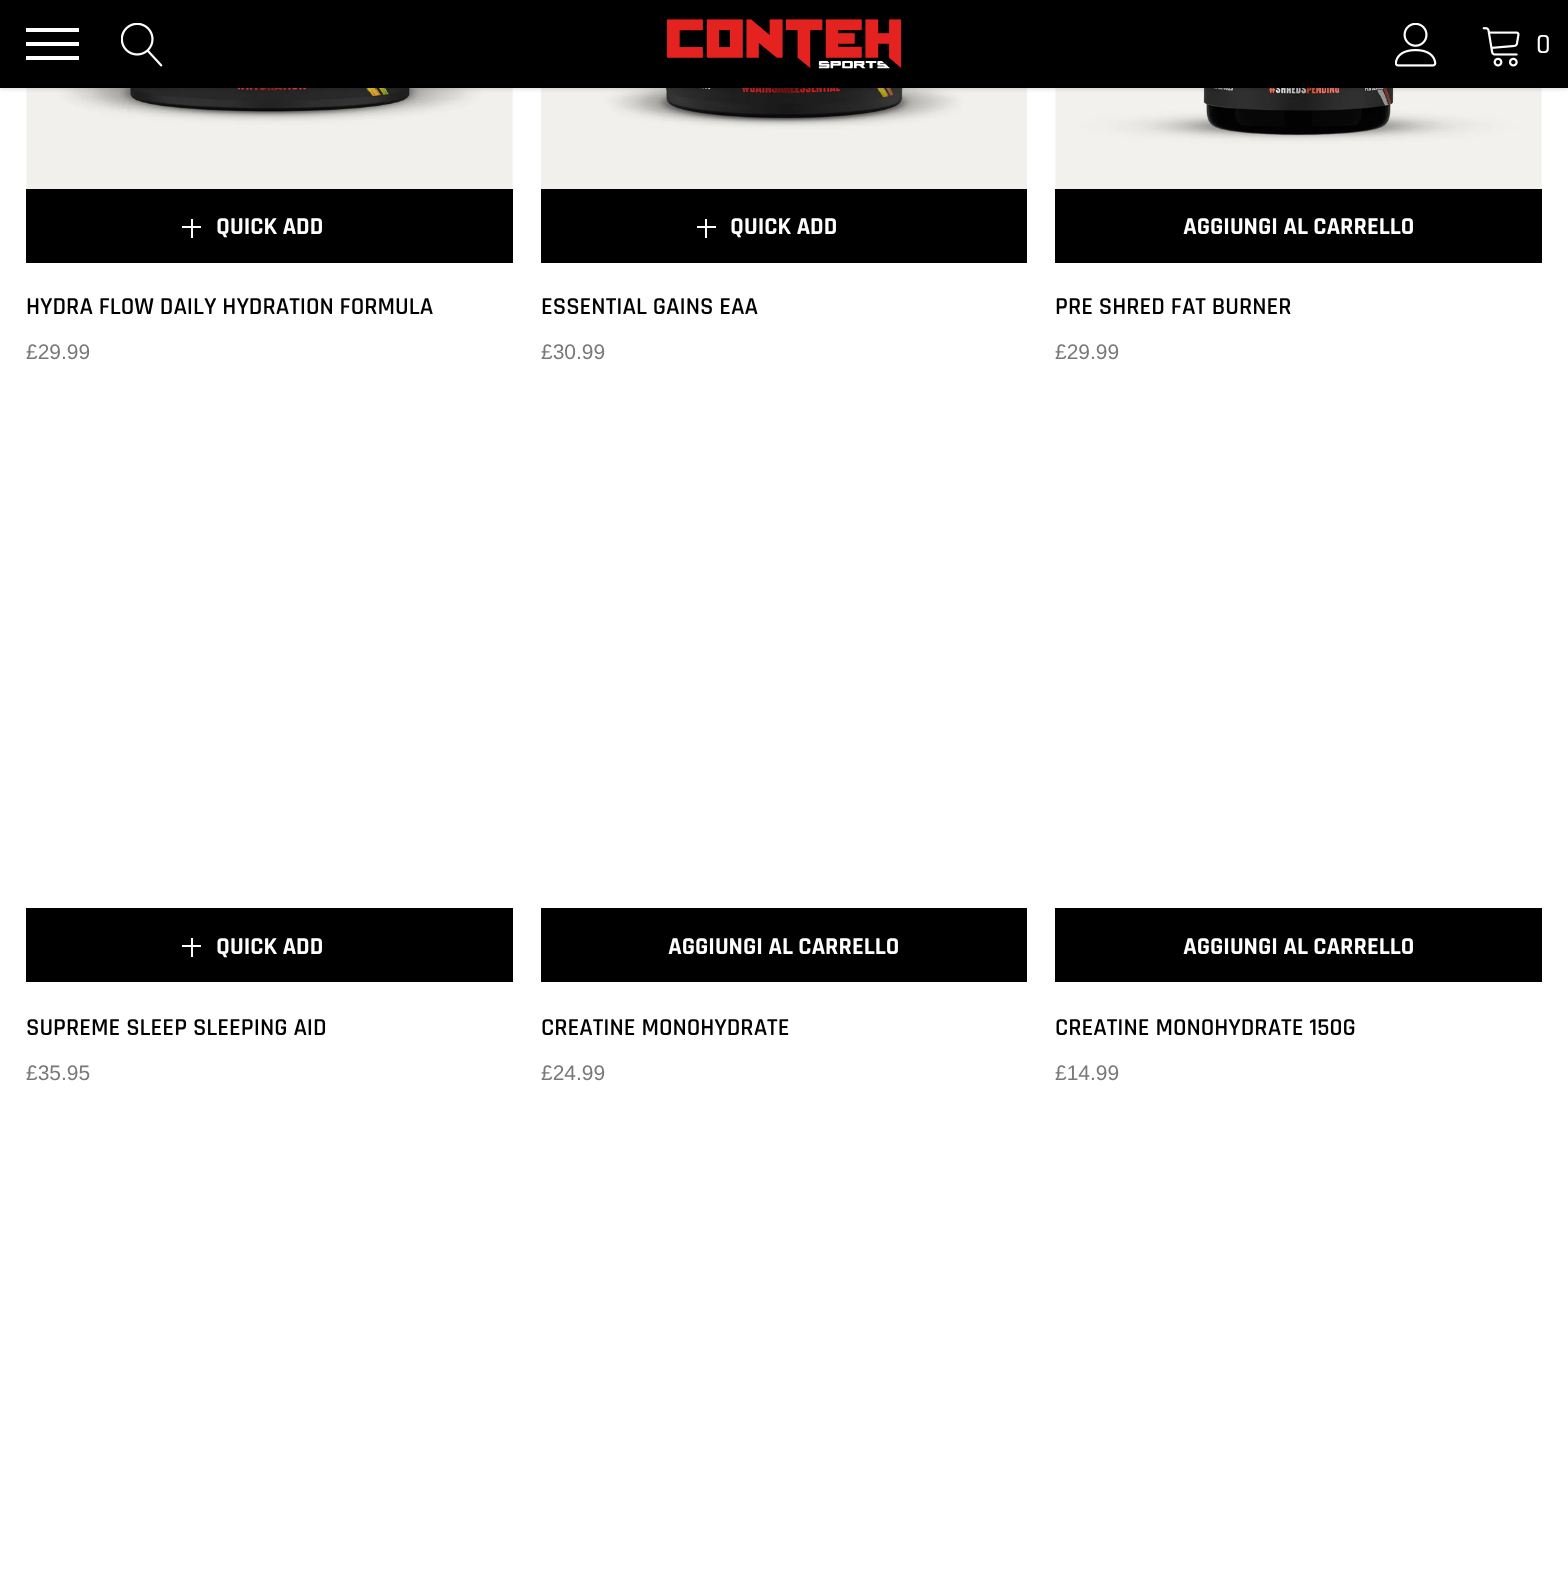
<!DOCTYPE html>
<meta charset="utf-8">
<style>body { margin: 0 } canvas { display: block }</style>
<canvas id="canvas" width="1568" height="1592"></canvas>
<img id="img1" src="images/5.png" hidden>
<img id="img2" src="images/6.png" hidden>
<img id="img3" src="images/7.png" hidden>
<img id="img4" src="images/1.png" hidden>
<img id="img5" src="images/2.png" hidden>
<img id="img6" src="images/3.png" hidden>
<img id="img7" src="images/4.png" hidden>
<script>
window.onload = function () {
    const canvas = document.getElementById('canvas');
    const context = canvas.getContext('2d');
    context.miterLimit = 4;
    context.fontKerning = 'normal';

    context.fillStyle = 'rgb(255, 255, 255)';
    context.fillRect(0, 0, 1568, 1592);
    context.drawImage(document.getElementById('img1'), 26, 88, 487, 101);
    context.drawImage(document.getElementById('img2'), 541, 88, 486, 101);
    context.drawImage(document.getElementById('img3'), 1055, 88, 487, 101);
    context.fillStyle = 'rgba(0, 0, 0, 0.15)';
    context.filter = 'blur(2px)';
    context.beginPath();
    context.rect(0, 2, 1568, 87);
    context.fill();
    context.filter = 'none';
    context.fillStyle = 'rgb(0, 0, 0)';
    context.fillRect(0, 0, 1568, 88);
    context.fillStyle = 'rgb(255, 255, 255)';
    context.fillRect(26, 42, 53, 4);
    context.fillRect(26, 28, 53, 4);
    context.fillRect(26, 56, 53, 4);
    context.drawImage(document.getElementById('img4'), 121, 23, 42, 44);
    context.drawImage(document.getElementById('img5'), 666, 19, 236, 50);
    context.drawImage(document.getElementById('img6'), 1395, 23, 42, 44);
    context.drawImage(document.getElementById('img7'), 1482, 27, 38, 40);
    context.fillStyle = 'rgb(0, 0, 0)';
    context.fillRect(26, 189, 487, 74);
    context.fillStyle = 'rgb(255, 255, 255)';
    context.fillRect(182, 226, 19, 2);
    context.fillRect(191, 219, 2, 19);
    context.fillStyle = 'rgb(0, 0, 0)';
    context.fillRect(541, 189, 486, 74);
    context.fillStyle = 'rgb(255, 255, 255)';
    context.fillRect(697, 226, 19, 2);
    context.fillRect(705, 219, 2, 19);
    context.fillStyle = 'rgb(0, 0, 0)';
    context.fillRect(1055, 189, 487, 74);
    context.fillRect(26, 908, 487, 74);
    context.fillStyle = 'rgb(255, 255, 255)';
    context.fillRect(182, 945, 19, 2);
    context.fillRect(191, 938, 2, 19);
    context.fillStyle = 'rgb(0, 0, 0)';
    context.fillRect(541, 908, 486, 74);
    context.fillRect(1055, 908, 487, 74);
    context.font = '500 28px Rajdhani';
    context.fillStyle = 'rgb(255, 255, 255)';
    context.fillText('0', 1536, 53);
    context.font = 'bold 24.5px Rajdhani';
    context.fillText('QUICK ADD', 216, 234);
    context.font = '600 24.5px Rajdhani';
    context.fillStyle = 'rgb(0, 0, 0)';
    context.fillText('HYDRA FLOW DAILY HYDRATION FORMULA', 26, 314);
    context.font = '21px Arimo';
    context.fillStyle = 'rgb(120, 120, 120)';
    context.fillText('£29.99', 26, 359);
    context.font = 'bold 24.5px Rajdhani';
    context.fillStyle = 'rgb(255, 255, 255)';
    context.fillText('QUICK ADD', 730, 234);
    context.font = '600 24.5px Rajdhani';
    context.fillStyle = 'rgb(0, 0, 0)';
    context.fillText('ESSENTIAL GAINS EAA', 541, 314);
    context.font = '21px Arimo';
    context.fillStyle = 'rgb(120, 120, 120)';
    context.fillText('£30.99', 541, 359);
    context.font = 'bold 24.5px Rajdhani';
    context.fillStyle = 'rgb(255, 255, 255)';
    context.fillText('AGGIUNGI AL CARRELLO', 1183, 234);
    context.font = '600 24.5px Rajdhani';
    context.fillStyle = 'rgb(0, 0, 0)';
    context.fillText('PRE SHRED FAT BURNER', 1055, 314);
    context.font = '21px Arimo';
    context.fillStyle = 'rgb(120, 120, 120)';
    context.fillText('£29.99', 1055, 359);
    context.font = 'bold 24.5px Rajdhani';
    context.fillStyle = 'rgb(255, 255, 255)';
    context.fillText('QUICK ADD', 216, 954);
    context.font = '600 24.5px Rajdhani';
    context.fillStyle = 'rgb(0, 0, 0)';
    context.fillText('SUPREME SLEEP SLEEPING AID', 26, 1035);
    context.font = '21px Arimo';
    context.fillStyle = 'rgb(120, 120, 120)';
    context.fillText('£35.95', 26, 1080);
    context.font = 'bold 24.5px Rajdhani';
    context.fillStyle = 'rgb(255, 255, 255)';
    context.fillText('AGGIUNGI AL CARRELLO', 668, 954);
    context.font = '600 24.5px Rajdhani';
    context.fillStyle = 'rgb(0, 0, 0)';
    context.fillText('CREATINE MONOHYDRATE', 541, 1035);
    context.font = '21px Arimo';
    context.fillStyle = 'rgb(120, 120, 120)';
    context.fillText('£24.99', 541, 1080);
    context.font = 'bold 24.5px Rajdhani';
    context.fillStyle = 'rgb(255, 255, 255)';
    context.fillText('AGGIUNGI AL CARRELLO', 1183, 954);
    context.font = '600 24.5px Rajdhani';
    context.fillStyle = 'rgb(0, 0, 0)';
    context.fillText('CREATINE MONOHYDRATE 150G', 1055, 1035);
    context.font = '21px Arimo';
    context.fillStyle = 'rgb(120, 120, 120)';
    context.fillText('£14.99', 1055, 1080);
};
</script>
